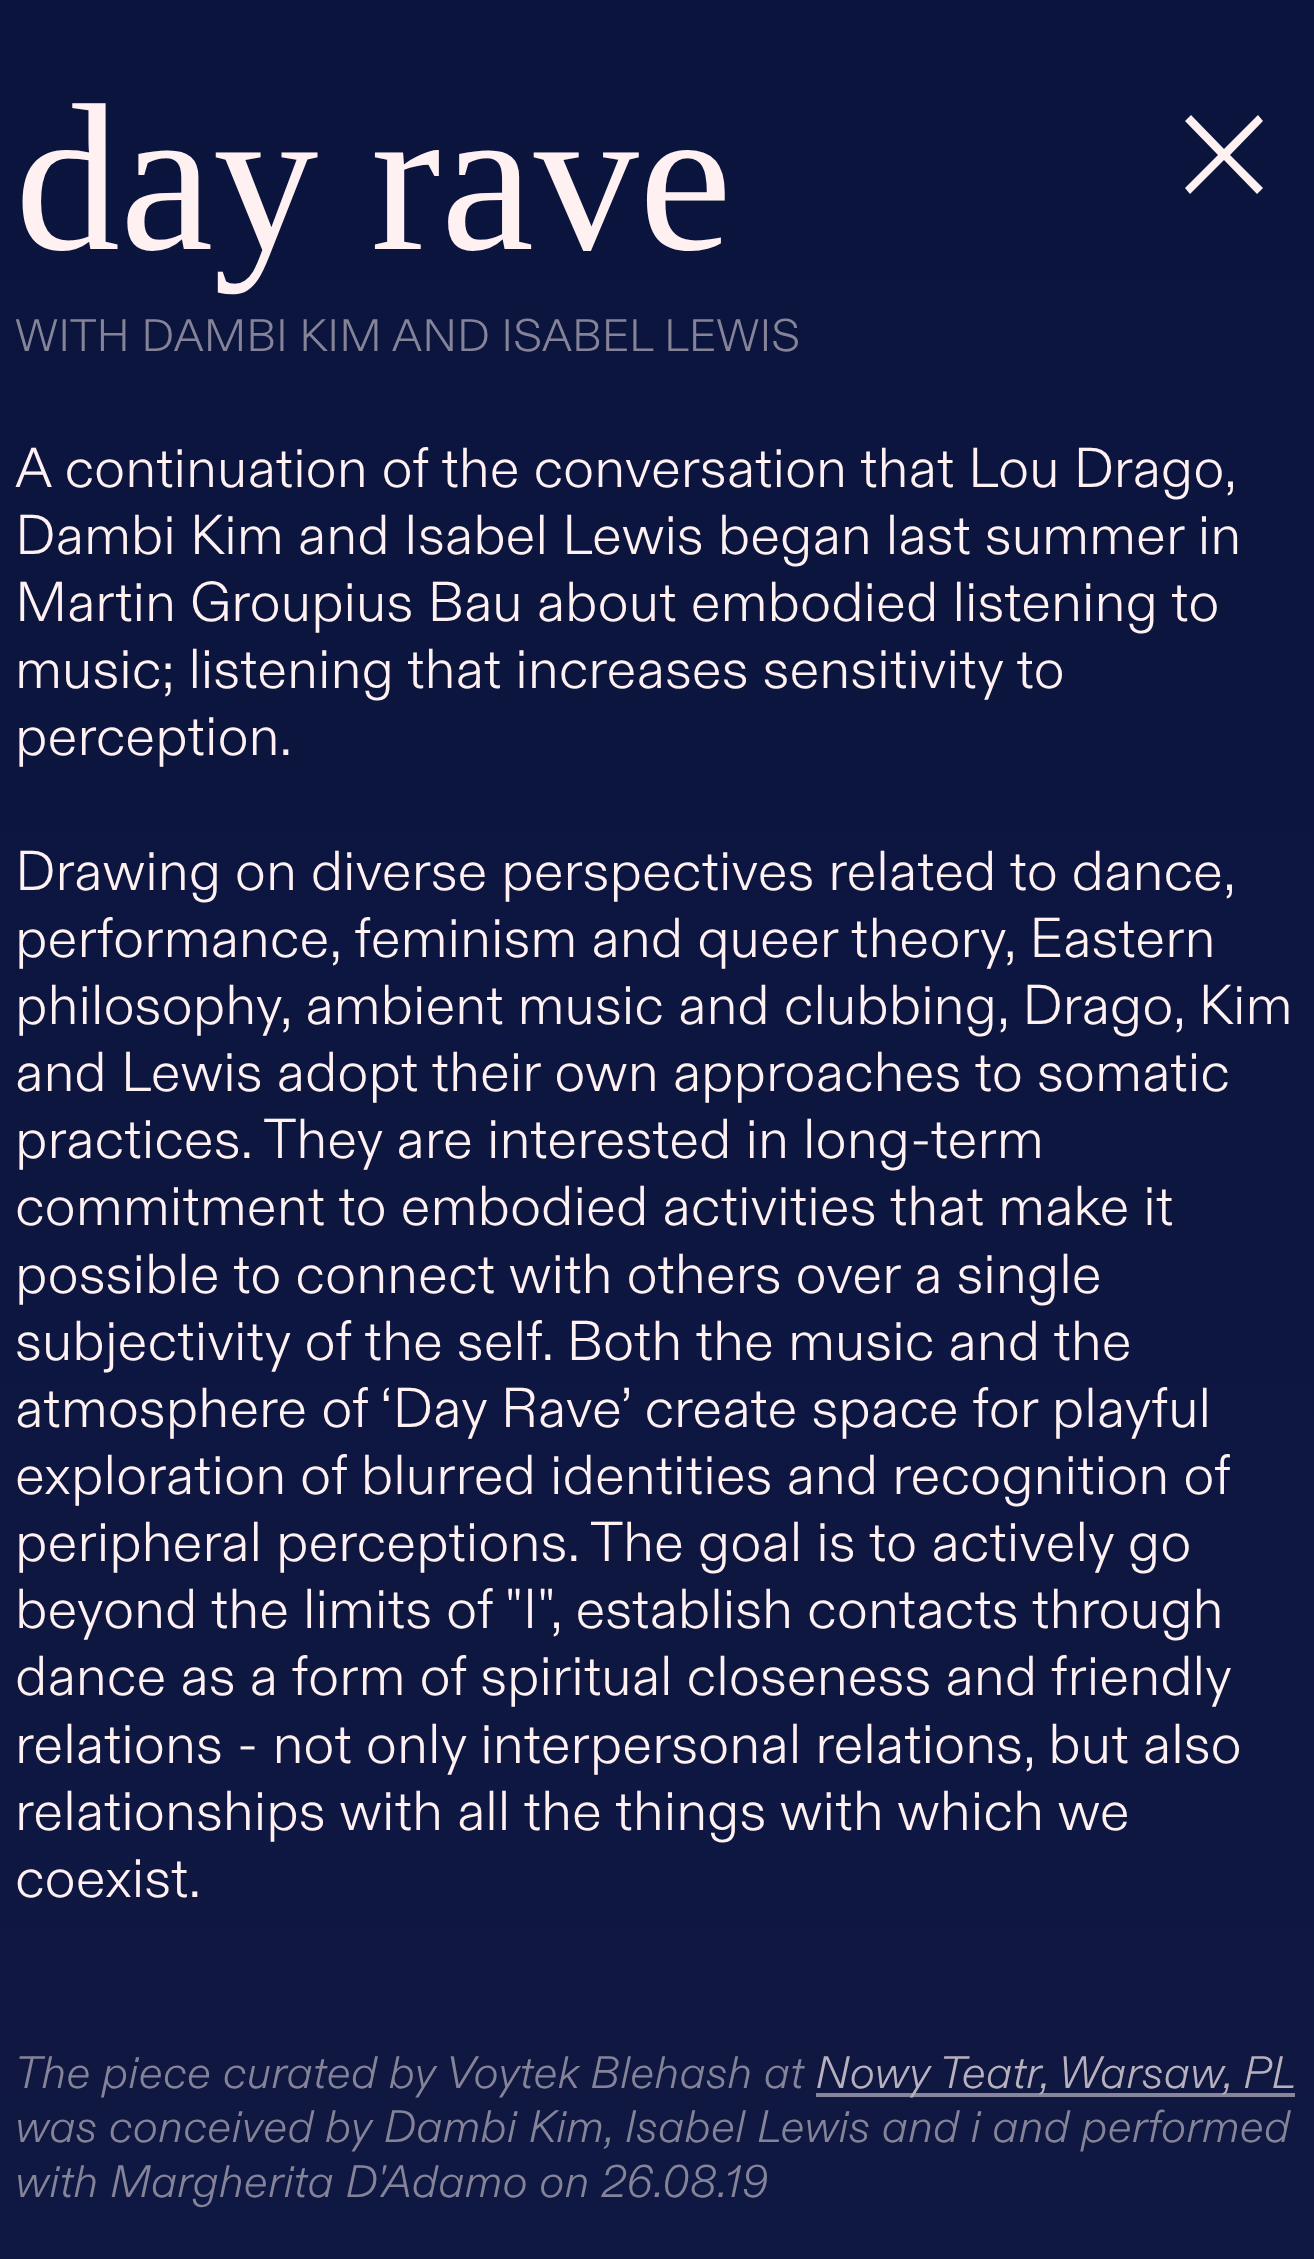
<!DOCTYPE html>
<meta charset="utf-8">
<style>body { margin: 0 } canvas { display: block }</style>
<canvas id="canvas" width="1314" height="2259"></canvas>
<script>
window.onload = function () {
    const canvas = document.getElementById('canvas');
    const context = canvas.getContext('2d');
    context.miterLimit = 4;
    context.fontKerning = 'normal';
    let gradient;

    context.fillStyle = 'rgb(255, 255, 255)';
    context.fillRect(0, 0, 1314, 2259);
    gradient = context.createLinearGradient(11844, 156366, 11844, 0);
    gradient.addColorStop(0, 'rgb(10, 20, 61)');
    gradient.addColorStop(0.13, 'rgb(62, 57, 107)');
    gradient.addColorStop(0.32, 'rgb(118, 92, 149)');
    gradient.addColorStop(0.42, 'rgb(192, 112, 127)');
    gradient.addColorStop(0.5, 'rgb(202, 148, 118)');
    gradient.addColorStop(0.58, 'rgb(192, 112, 127)');
    gradient.addColorStop(0.68, 'rgb(118, 92, 149)');
    gradient.addColorStop(0.87, 'rgb(62, 57, 107)');
    gradient.addColorStop(1, 'rgb(10, 20, 61)');
    context.fillStyle = gradient;
    context.fillRect(0, 0, 1314, 2259);
    context.fillStyle = 'rgb(135, 133, 154)';
    context.fillRect(816, 2093, 479, 4);
    context.fillStyle = 'rgb(255, 241, 241)';
    context.beginPath();
    context.moveTo(1185, 121);
    context.lineTo(1218, 155);
    context.lineTo(1185, 188);
    context.lineTo(1190, 194);
    context.lineTo(1224, 160);
    context.lineTo(1257, 194);
    context.lineTo(1263, 188);
    context.lineTo(1230, 155);
    context.lineTo(1263, 121);
    context.lineTo(1258, 115);
    context.lineTo(1224, 149);
    context.lineTo(1191, 115);
    context.closePath();
    context.fill();
    context.font = '210px Liberation Serif';
    context.fillText('day rave', 15, 249);
    context.font = '300 45.5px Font';
    context.fillStyle = 'rgb(133, 131, 152)';
    context.fillText('WITH DAMBI KIM AND ISABEL LEWIS', 15, 351);
    context.wordSpacing = '-0.25px';
    context.font = '300 56px Font';
    context.fillStyle = 'rgb(255, 241, 241)';
    context.fillText('A continuation of the conversation that Lou Drago,', 15, 487);
    context.wordSpacing = '0px';
    context.fillText('Dambi Kim and Isabel Lewis began last summer in', 15, 554);
    context.fillText('Martin Groupius Bau about embodied listening to', 15, 621);
    context.fillText('music; listening that increases sensitivity to', 15, 688);
    context.fillText('perception.', 15, 755);
    context.wordSpacing = '-0.25px';
    context.fillText('Drawing on diverse perspectives related to dance,', 15, 890);
    context.wordSpacing = '0px';
    context.fillText('performance, feminism and queer theory, Eastern', 15, 957);
    context.fillText('philosophy, ambient music and clubbing, Drago, Kim', 15, 1024);
    context.fillText('and Lewis adopt their own approaches to somatic', 15, 1091);
    context.fillText('practices. They are interested in long-term', 15, 1158);
    context.fillText('commitment to embodied activities that make it', 15, 1225);
    context.fillText('possible to connect with others over a single', 15, 1293);
    context.fillText('subjectivity of the self. Both the music and the', 15, 1360);
    context.fillText('atmosphere of ‘Day Rave’ create space for playful', 15, 1427);
    context.fillText('exploration of blurred identities and recognition of', 15, 1494);
    context.fillText('peripheral perceptions. The goal is to actively go', 15, 1561);
    context.fillText('beyond the limits of "I", establish contacts through', 15, 1628);
    context.fillText('dance as a form of spiritual closeness and friendly', 15, 1695);
    context.fillText('relations - not only interpersonal relations, but also', 15, 1763);
    context.fillText('relationships with all the things with which we', 15, 1830);
    context.fillText('coexist.', 15, 1897);
    context.font = 'italic 300 45.5px Font';
    context.fillStyle = 'rgb(133, 131, 152)';
    context.fillText('The piece curated by Voytek Blehash at', 15, 2088);
    context.wordSpacing = '-0.5px';
    context.fillStyle = 'rgb(183, 176, 189)';
    context.fillText('Nowy Teatr, Warsaw, PL', 815, 2088);
    context.wordSpacing = '0px';
    context.fillStyle = 'rgb(133, 131, 152)';
    context.fillText('was conceived by Dambi Kim, Isabel Lewis and i and performed', 15, 2142);
    context.fillText('with Margherita D\'Adamo on 26.08.19', 15, 2197);
};
</script>
